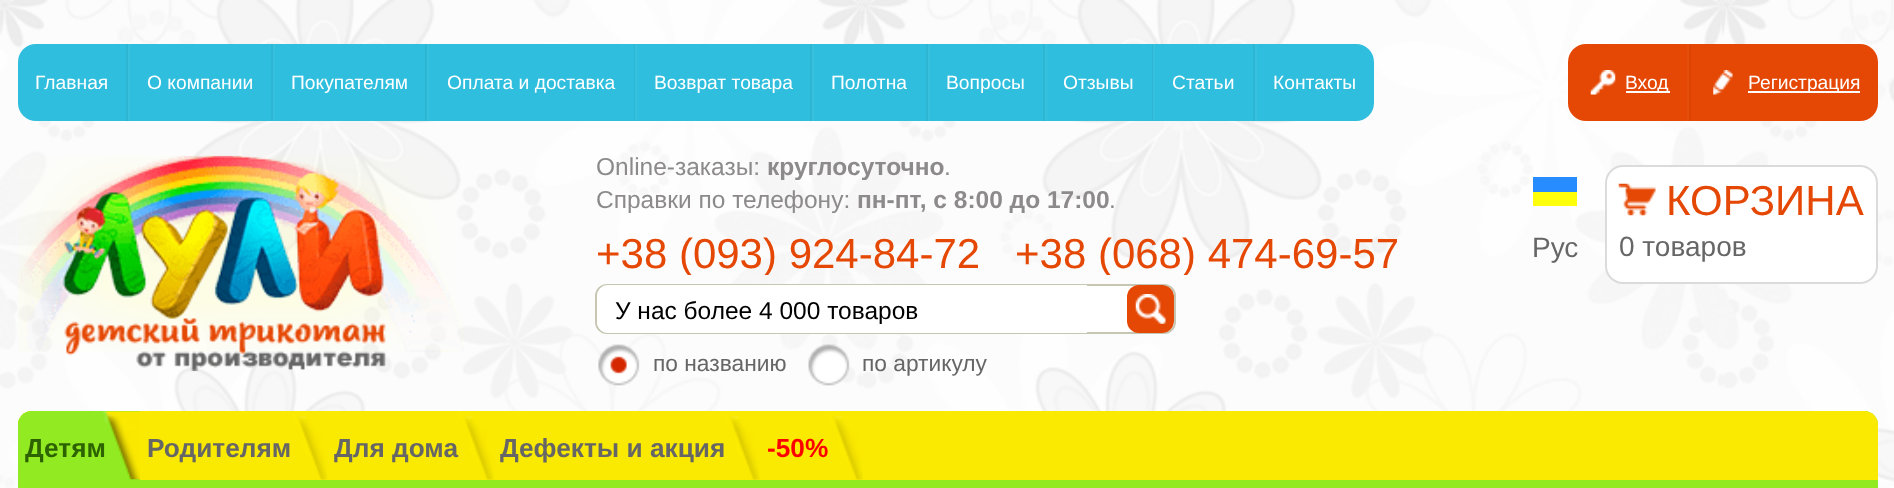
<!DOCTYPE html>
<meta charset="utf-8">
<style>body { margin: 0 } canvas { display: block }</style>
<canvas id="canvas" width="1894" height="488"></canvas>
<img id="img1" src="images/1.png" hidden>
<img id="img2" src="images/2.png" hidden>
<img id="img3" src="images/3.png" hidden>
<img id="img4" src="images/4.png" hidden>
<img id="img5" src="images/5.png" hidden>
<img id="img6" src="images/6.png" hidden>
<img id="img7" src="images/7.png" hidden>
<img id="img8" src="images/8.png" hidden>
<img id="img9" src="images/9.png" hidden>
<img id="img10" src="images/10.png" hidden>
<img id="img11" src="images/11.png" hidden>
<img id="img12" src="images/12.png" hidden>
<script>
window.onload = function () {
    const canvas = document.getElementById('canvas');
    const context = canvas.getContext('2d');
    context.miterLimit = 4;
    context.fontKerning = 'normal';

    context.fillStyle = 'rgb(255, 255, 255)';
    context.fillRect(0, 0, 1894, 488);
    context.drawImage(document.getElementById('img1'), 0, 0, 1894, 488);
    context.fillStyle = 'rgb(47, 190, 221)';
    context.beginPath();
    context.roundRect(18, 44, 110, 77, [18, 0, 0, 18]);
    context.fill();
    context.fillStyle = 'rgb(45, 182, 212)';
    context.fillRect(126, 44, 2, 77);
    context.fillStyle = 'rgb(47, 190, 221)';
    context.fillRect(130, 44, 141, 77);
    context.fillStyle = 'rgb(45, 182, 212)';
    context.fillRect(271, 44, 2, 77);
    context.fillStyle = 'rgb(55, 193, 222)';
    context.fillRect(128, 44, 2, 77);
    context.fillStyle = 'rgb(47, 190, 221)';
    context.fillRect(275, 44, 150, 77);
    context.fillStyle = 'rgb(45, 182, 212)';
    context.fillRect(425, 44, 2, 77);
    context.fillStyle = 'rgb(55, 193, 222)';
    context.fillRect(273, 44, 2, 77);
    context.fillStyle = 'rgb(47, 190, 221)';
    context.fillRect(429, 44, 205, 77);
    context.fillStyle = 'rgb(45, 182, 212)';
    context.fillRect(634, 44, 1, 77);
    context.fillStyle = 'rgb(55, 193, 222)';
    context.fillRect(427, 44, 2, 77);
    context.fillStyle = 'rgb(47, 190, 221)';
    context.fillRect(637, 44, 173, 77);
    context.fillStyle = 'rgb(45, 182, 212)';
    context.fillRect(810, 44, 2, 77);
    context.fillStyle = 'rgb(55, 193, 222)';
    context.fillRect(635, 44, 2, 77);
    context.fillStyle = 'rgb(47, 190, 221)';
    context.fillRect(814, 44, 112, 77);
    context.fillStyle = 'rgb(45, 182, 212)';
    context.fillRect(926, 44, 2, 77);
    context.fillStyle = 'rgb(55, 193, 222)';
    context.fillRect(812, 44, 2, 77);
    context.fillStyle = 'rgb(47, 190, 221)';
    context.fillRect(930, 44, 113, 77);
    context.fillStyle = 'rgb(45, 182, 212)';
    context.fillRect(1043, 44, 2, 77);
    context.fillStyle = 'rgb(55, 193, 222)';
    context.fillRect(928, 44, 2, 77);
    context.fillStyle = 'rgb(47, 190, 221)';
    context.fillRect(1047, 44, 105, 77);
    context.fillStyle = 'rgb(45, 182, 212)';
    context.fillRect(1152, 44, 1, 77);
    context.fillStyle = 'rgb(55, 193, 222)';
    context.fillRect(1045, 44, 2, 77);
    context.fillStyle = 'rgb(47, 190, 221)';
    context.fillRect(1155, 44, 98, 77);
    context.fillStyle = 'rgb(45, 182, 212)';
    context.fillRect(1253, 44, 2, 77);
    context.fillStyle = 'rgb(55, 193, 222)';
    context.fillRect(1153, 44, 2, 77);
    context.fillStyle = 'rgb(47, 190, 221)';
    context.beginPath();
    context.roundRect(1255, 44, 119, 77, [0, 18, 18, 0]);
    context.fill();
    context.fillStyle = 'rgb(55, 193, 222)';
    context.fillRect(1255, 44, 2, 77);
    context.fillStyle = 'rgb(229, 71, 4)';
    context.beginPath();
    context.roundRect(1568, 44, 121, 77, [18, 0, 0, 18]);
    context.fill();
    context.drawImage(document.getElementById('img2'), 1590, 70, 26, 25);
    context.fillStyle = 'rgb(230, 78, 14)';
    context.fillRect(1687, 44, 2, 77);
    context.fillStyle = 'rgb(255, 255, 255)';
    context.fillRect(1626, 91, 44, 2);
    context.fillStyle = 'rgb(229, 71, 4)';
    context.beginPath();
    context.roundRect(1689, 44, 189, 77, [0, 18, 18, 0]);
    context.fill();
    context.drawImage(document.getElementById('img3'), 1713, 70, 20, 25);
    context.fillStyle = 'rgb(220, 68, 4)';
    context.fillRect(1689, 44, 2, 77);
    context.fillStyle = 'rgb(255, 255, 255)';
    context.fillRect(1748, 91, 112, 2);
    context.drawImage(document.getElementById('img4'), 18, 155, 446, 216);
    context.beginPath();
    context.roundRect(596, 285, 579, 48, 11);
    context.fill();
    context.strokeStyle = 'rgb(198, 198, 178)';
    context.lineWidth = 2;
    context.stroke();
    context.beginPath();
    context.roundRect(597, 285, 490, 48, [11, 0, 0, 11]);
    context.fill();
    context.save();
    context.beginPath();
    context.roundRect(597, 285, 577, 48, 11);
    context.clip();
    context.fillStyle = 'rgb(229, 71, 4)';
    context.beginPath();
    context.roundRect(1127, 285, 47, 48, 12);
    context.fill();
    context.restore();
    context.drawImage(document.getElementById('img5'), 1135, 294, 31, 30);
    context.drawImage(document.getElementById('img6'), 598, 344, 42, 42);
    context.drawImage(document.getElementById('img7'), 808, 344, 42, 42);
    context.fillStyle = 'rgb(38, 140, 255)';
    context.fillRect(1533, 177, 44, 15);
    context.fillStyle = 'rgb(255, 255, 11)';
    context.fillRect(1533, 192, 44, 14);
    context.fillStyle = 'rgb(255, 255, 255)';
    context.beginPath();
    context.roundRect(1606, 166, 271, 117, 17);
    context.fill();
    context.strokeStyle = 'rgb(219, 219, 219)';
    context.stroke();
    context.drawImage(document.getElementById('img8'), 1618, 183, 38, 33);
    context.fillStyle = 'rgb(146, 235, 34)';
    context.beginPath();
    context.roundRect(18, 411, 1860, 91, 14);
    context.fill();
    context.fillStyle = 'rgb(250, 233, 0)';
    context.beginPath();
    context.roundRect(18, 411, 1860, 69, [14, 14, 0, 0]);
    context.fill();
    context.fillStyle = 'rgb(146, 235, 34)';
    context.beginPath();
    context.roundRect(18, 411, 122, 69, [14, 0, 0, 0]);
    context.fill();
    context.drawImage(document.getElementById('img9'), 103, 411, 37, 69);
    context.drawImage(document.getElementById('img10'), 292, 413, 35, 67);
    context.drawImage(document.getElementById('img11'), 458, 413, 36, 67);
    context.drawImage(document.getElementById('img11'), 724, 413, 36, 67);
    context.drawImage(document.getElementById('img12'), 828, 413, 35, 67);
    context.font = '19.25px Liberation Sans';
    context.fillStyle = 'rgb(255, 255, 255)';
    context.fillText('Главная', 35, 89);
    context.fillText('О компании', 147, 89);
    context.fillText('Покупателям', 291, 89);
    context.fillText('Оплата и доставка', 447, 89);
    context.fillText('Возврат товара', 654, 89);
    context.fillText('Полотна', 831, 89);
    context.fillText('Вопросы', 946, 89);
    context.fillText('Отзывы', 1063, 89);
    context.fillText('Статьи', 1172, 89);
    context.fillText('Контакты', 1273, 89);
    context.fillText('Вход', 1625, 89);
    context.fillText('Регистрация', 1748, 89);
    context.font = '24.5px Liberation Sans';
    context.fillStyle = 'rgb(140, 138, 138)';
    context.fillText('Online-заказы:', 596, 175);
    context.font = 'bold 24.5px Liberation Sans';
    context.fillText('круглосуточно', 767, 175);
    context.font = '24.5px Liberation Sans';
    context.fillText('.', 944, 175);
    context.fillText('Справки по телефону:', 596, 208);
    context.font = 'bold 24.5px Liberation Sans';
    context.fillText('пн-пт, с 8:00 до 17:00', 857, 208);
    context.font = '24.5px Liberation Sans';
    context.fillText('.', 1109, 208);
    context.save();
    context.beginPath();
    context.rect(595, 231, 838, 44);
    context.clip();
    context.font = '42px Liberation Sans';
    context.fillStyle = 'rgb(229, 71, 4)';
    context.fillText('+38 (093) 924-84-72', 596, 268);
    context.fillText('+38 (068) 474-69-57', 1015, 268);
    context.restore();
    context.fillStyle = 'rgb(0, 0, 0)';
    context.fillText('У нас более 4 000 товаров', 615, 319);
    context.font = '22.75px Liberation Sans';
    context.fillStyle = 'rgb(102, 102, 102)';
    context.fillText('по названию', 653, 371);
    context.fillText('по артикулу', 862, 371);
    context.font = '28px Liberation Sans';
    context.fillText('Рус', 1532, 257);
    context.font = '42px Liberation Sans';
    context.fillStyle = 'rgb(229, 71, 4)';
    context.fillText('КОРЗИНА', 1666, 215);
    context.font = '28px Liberation Sans';
    context.fillStyle = 'rgb(102, 102, 102)';
    context.fillText('0 товаров', 1619, 256);
    context.font = 'bold 26.25px Liberation Sans';
    context.fillStyle = 'rgb(45, 98, 0)';
    context.fillText('Детям', 25, 457);
    context.fillStyle = 'rgb(102, 102, 102)';
    context.fillText('Родителям', 147, 457);
    context.fillText('Для дома', 334, 457);
    context.fillText('Дефекты и акция', 500, 457);
    context.fillStyle = 'rgb(255, 0, 0)';
    context.fillText('-50%', 767, 457);
};
</script>
